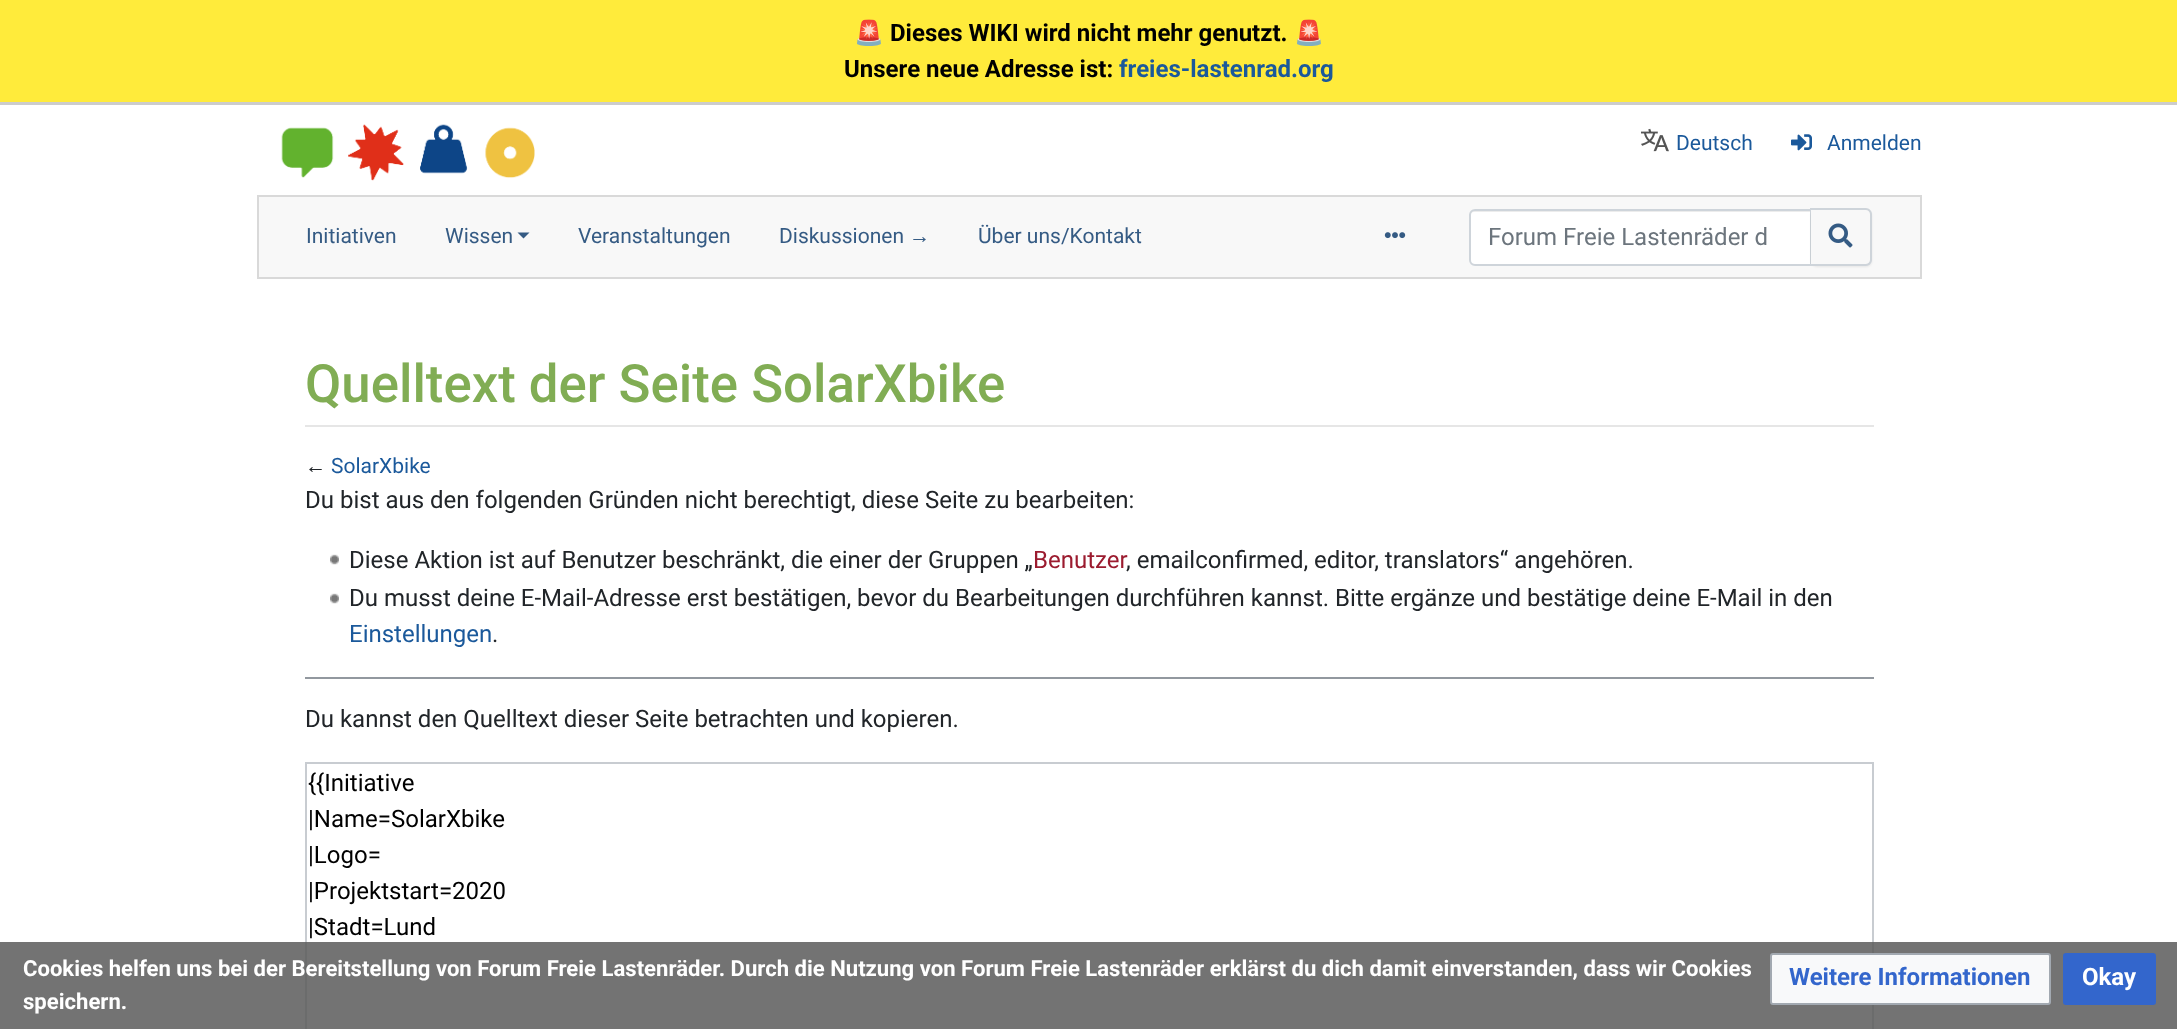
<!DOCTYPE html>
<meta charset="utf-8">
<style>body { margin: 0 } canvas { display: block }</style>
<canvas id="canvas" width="2177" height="1029"></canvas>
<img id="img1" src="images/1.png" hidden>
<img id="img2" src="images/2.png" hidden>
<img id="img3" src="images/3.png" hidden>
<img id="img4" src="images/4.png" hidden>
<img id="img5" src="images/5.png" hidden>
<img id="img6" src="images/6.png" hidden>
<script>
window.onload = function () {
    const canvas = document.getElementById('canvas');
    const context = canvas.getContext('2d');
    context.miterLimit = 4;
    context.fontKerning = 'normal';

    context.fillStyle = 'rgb(255, 255, 255)';
    context.fillRect(0, 0, 2177, 1029);
    context.fillStyle = 'rgb(255, 235, 59)';
    context.fillRect(0, 0, 2177, 102);
    context.fillStyle = 'rgb(204, 204, 204)';
    context.fillRect(0, 102, 2177, 3);
    context.drawImage(document.getElementById('img1'), 281, 124, 254, 57);
    context.drawImage(document.getElementById('img2'), 1641, 128, 28, 24);
    context.drawImage(document.getElementById('img3'), 1791, 134, 21, 17);
    context.fillStyle = 'rgb(248, 248, 248)';
    context.beginPath();
    context.rect(258, 196, 1663, 82);
    context.fill();
    context.strokeStyle = 'rgb(217, 217, 217)';
    context.lineWidth = 2;
    context.stroke();
    context.fillStyle = 'rgb(53, 91, 132)';
    context.beginPath();
    context.moveTo(517.5, 232.5);
    context.lineTo(529.5, 232.5);
    context.lineTo(523.5, 238.5);
    context.closePath();
    context.fill();
    context.drawImage(document.getElementById('img4'), 1384, 232, 22, 7);
    context.fillStyle = 'rgb(255, 255, 255)';
    context.beginPath();
    context.roundRect(1470, 210, 341, 54, [5, 0, 0, 5]);
    context.fill();
    context.fillStyle = 'rgb(236, 236, 236)';
    context.beginPath();
    context.moveTo(1474, 212);
    context.lineTo(1810, 212);
    context.lineTo(1810, 264);
    context.lineTo(1811, 264);
    context.lineTo(1811, 210);
    context.lineTo(1475, 210);
    context.bezierCurveTo(1472, 210, 1470, 213, 1470, 216);
    context.bezierCurveTo(1470, 214, 1472, 212, 1474, 212);
    context.closePath();
    context.fill();
    context.beginPath();
    context.roundRect(1470, 210, 341, 55, [5, 0, 0, 5]);
    context.strokeStyle = 'rgb(206, 212, 218)';
    context.stroke();
    context.fillStyle = 'rgba(0, 0, 0, 0.07)';
    context.filter = 'blur(1px)';
    context.beginPath();
    context.roundRect(1811, 210, 61, 57, 6);
    context.fill();
    context.filter = 'none';
    context.fillStyle = 'rgb(248, 248, 248)';
    context.beginPath();
    context.roundRect(1811, 210, 60, 54, [0, 5, 5, 0]);
    context.fill();
    context.fillStyle = 'rgb(206, 212, 218)';
    context.beginPath();
    context.moveTo(1810, 208);
    context.lineTo(1866, 208);
    context.bezierCurveTo(1869, 208, 1872, 211, 1872, 214);
    context.lineTo(1872, 260);
    context.bezierCurveTo(1872, 263, 1869, 266, 1866, 266);
    context.lineTo(1810, 266);
    context.closePath();
    context.moveTo(1810, 210);
    context.lineTo(1866, 210);
    context.bezierCurveTo(1868, 210, 1870, 212, 1870, 214);
    context.lineTo(1870, 260);
    context.bezierCurveTo(1870, 262, 1868, 264, 1866, 264);
    context.lineTo(1810, 264);
    context.closePath();
    context.fill('evenodd');
    context.drawImage(document.getElementById('img5'), 1828, 223, 25, 25);
    context.fillStyle = 'rgb(230, 230, 230)';
    context.fillRect(305, 425, 1569, 2);
    context.drawImage(document.getElementById('img6'), 330, 554, 9, 11);
    context.drawImage(document.getElementById('img6'), 330, 593, 9, 11);
    context.fillStyle = 'rgb(146, 152, 159)';
    context.fillRect(305, 677, 1569, 2);
    context.strokeStyle = 'rgb(200, 204, 209)';
    context.strokeRect(306, 763, 1567, 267);
    context.fillStyle = 'rgba(90, 90, 90, 0.85)';
    context.fillRect(0, 942, 2177, 87);
    context.fillStyle = 'rgb(248, 249, 250)';
    context.beginPath();
    context.roundRect(1771, 954, 279, 50, 2);
    context.fill();
    context.strokeStyle = 'rgb(162, 169, 177)';
    context.stroke();
    context.fillStyle = 'rgb(51, 102, 204)';
    context.beginPath();
    context.roundRect(2064, 954, 91, 50, 2);
    context.fill();
    context.strokeStyle = 'rgb(51, 102, 204)';
    context.stroke();
    context.font = 'bold 24px Noto Color Emoji';
    context.fillStyle = 'rgb(0, 0, 0)';
    context.fillText('🚨', 854, 41);
    context.font = 'bold 24px Roboto';
    context.fillText('Dieses WIKI wird nicht mehr genutzt.', 890, 41);
    context.font = 'bold 24px Noto Color Emoji';
    context.fillText('🚨', 1294, 41);
    context.font = 'bold 24px Roboto';
    context.fillText('Unsere neue Adresse ist:', 844, 77);
    context.fillStyle = 'rgb(27, 89, 155)';
    context.fillText('freies-lastenrad.org', 1119, 77);
    context.font = '21px Roboto';
    context.fillText('Deutsch', 1676, 150);
    context.fillText('Anmelden', 1827, 150);
    context.fillStyle = 'rgb(53, 91, 132)';
    context.fillText('Initiativen', 306, 243);
    context.fillText('Wissen', 445, 243);
    context.fillText('Veranstaltungen', 578, 243);
    context.fillText('Diskussionen', 779, 243);
    context.font = '21px Liberation Sans';
    context.fillText('→', 909, 243);
    context.font = '21px Roboto';
    context.fillText('Über uns/Kontakt', 978, 243);
    context.font = '24px Roboto';
    context.fillStyle = 'rgb(108, 117, 125)';
    context.fillText('Forum Freie Lastenräder d', 1488, 245);
    context.font = '500 52.75px Roboto';
    context.fillStyle = 'rgb(129, 173, 84)';
    context.fillText('Quelltext der Seite SolarXbike', 305, 402);
    context.font = '21px Liberation Sans';
    context.fillStyle = 'rgb(33, 37, 41)';
    context.fillText('←', 305, 473);
    context.font = '21px Roboto';
    context.fillStyle = 'rgb(27, 89, 155)';
    context.fillText('SolarXbike', 331, 473);
    context.font = '24px Roboto';
    context.fillStyle = 'rgb(33, 37, 41)';
    context.fillText('Du bist aus den folgenden Gründen nicht berechtigt, diese Seite zu bearbeiten:', 305, 508);
    context.fillText('Diese Aktion ist auf Benutzer beschränkt, die einer der Gruppen „', 349, 568);
    context.fillStyle = 'rgb(155, 27, 47)';
    context.fillText('Benutzer', 1033, 568);
    context.fillStyle = 'rgb(33, 37, 41)';
    context.fillText(', emailconfirmed, editor, translators“ angehören.', 1126, 568);
    context.fillText('Du musst deine E-Mail-Adresse erst bestätigen, bevor du Bearbeitungen durchführen kannst. Bitte ergänze und bestätige deine E-Mail in den', 349, 606);
    context.fillStyle = 'rgb(27, 89, 155)';
    context.fillText('Einstellungen', 349, 642);
    context.fillStyle = 'rgb(33, 37, 41)';
    context.fillText('.', 492, 642);
    context.fillText('Du kannst den Quelltext dieser Seite betrachten und kopieren.', 305, 727);
    context.fillStyle = 'rgb(0, 0, 0)';
    context.fillText('{{Initiative', 308, 791);
    context.fillText('|Name=SolarXbike', 308, 827);
    context.fillText('|Logo=', 308, 863);
    context.fillText('|Projektstart=2020', 308, 899);
    context.fillText('|Stadt=Lund', 308, 935);
    context.font = 'bold 22.08px Roboto';
    context.fillStyle = 'rgb(255, 255, 255)';
    context.fillText('Cookies helfen uns bei der Bereitstellung von Forum Freie Lastenräder. Durch die Nutzung von Forum Freie Lastenräder erklärst du dich damit einverstanden, dass wir Cookies', 23, 976);
    context.fillText('speichern.', 23, 1009);
    context.font = 'bold 24px Roboto';
    context.fillStyle = 'rgb(51, 102, 204)';
    context.fillText('Weitere Informationen', 1789, 985);
    context.fillStyle = 'rgb(255, 255, 255)';
    context.fillText('Okay', 2082, 985);
};
</script>
